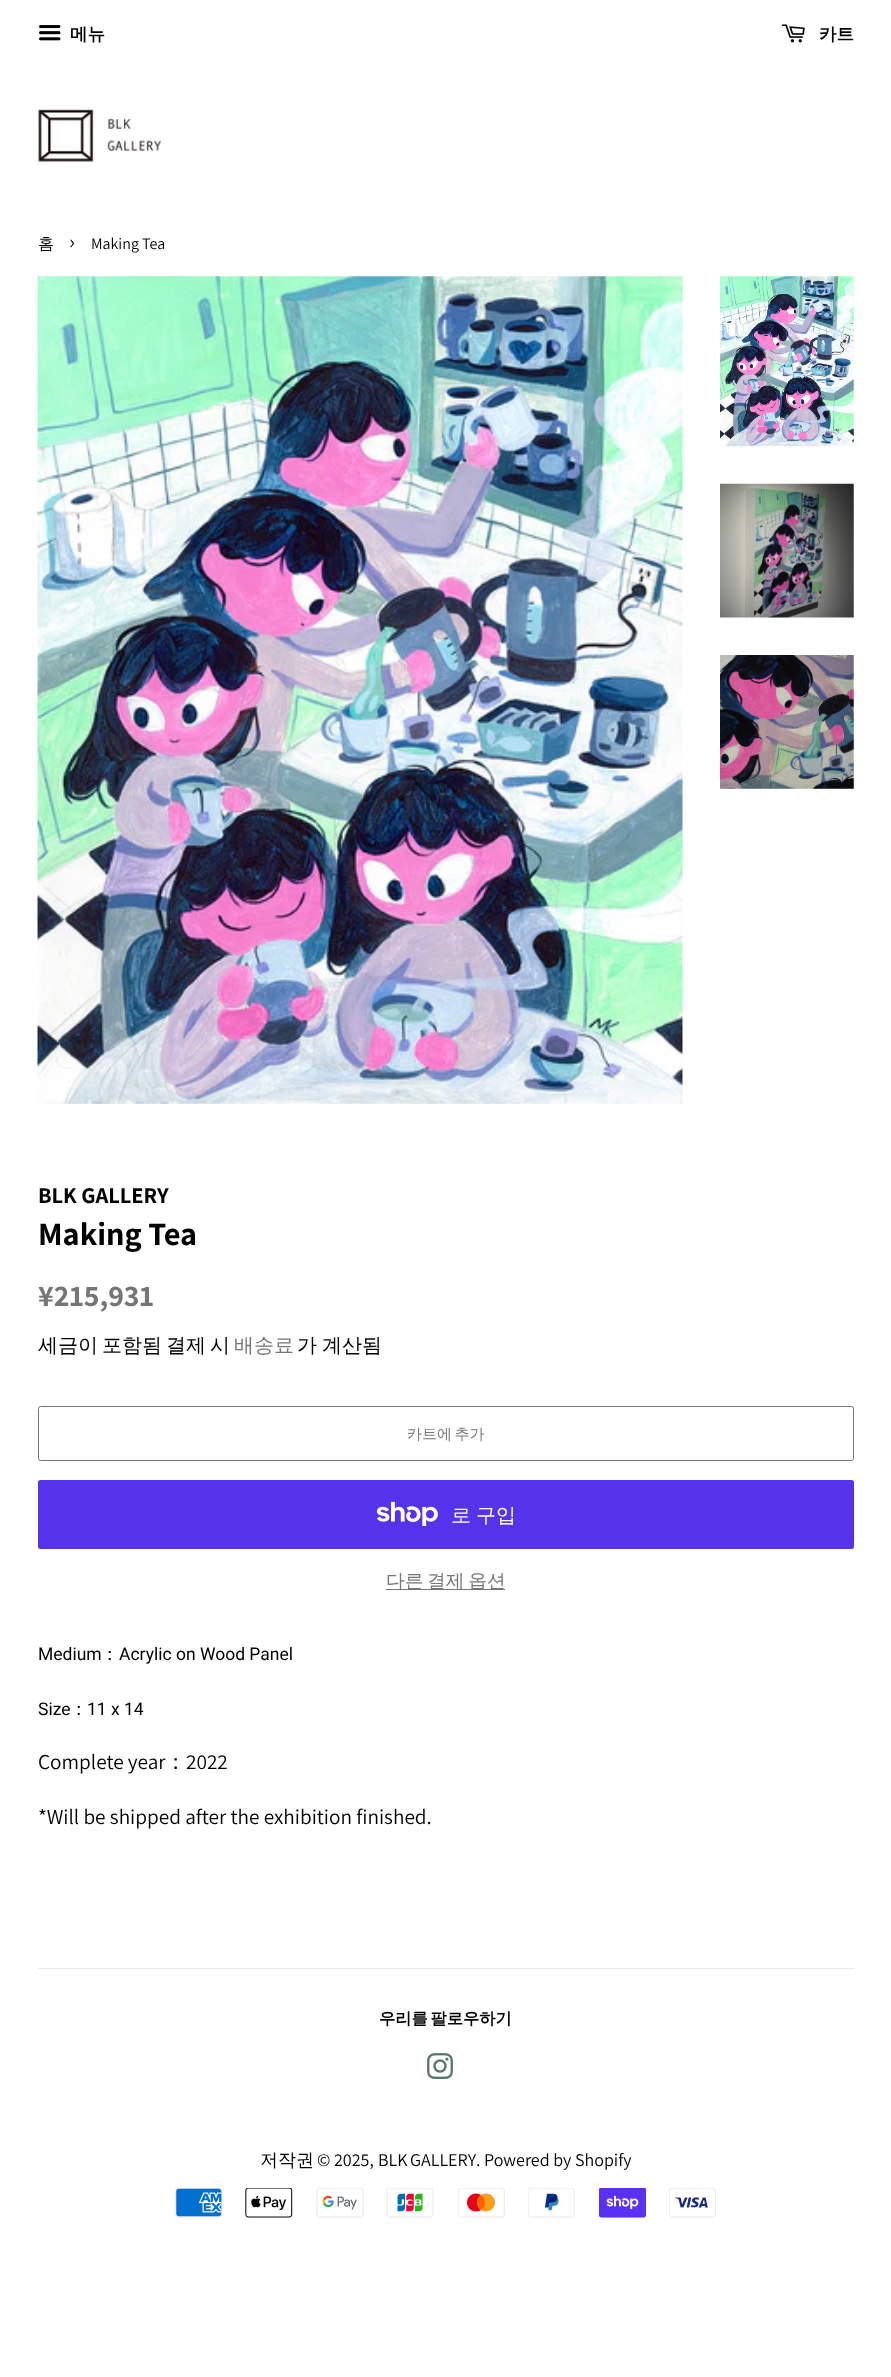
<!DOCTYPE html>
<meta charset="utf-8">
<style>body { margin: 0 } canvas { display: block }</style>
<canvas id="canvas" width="891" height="2377"></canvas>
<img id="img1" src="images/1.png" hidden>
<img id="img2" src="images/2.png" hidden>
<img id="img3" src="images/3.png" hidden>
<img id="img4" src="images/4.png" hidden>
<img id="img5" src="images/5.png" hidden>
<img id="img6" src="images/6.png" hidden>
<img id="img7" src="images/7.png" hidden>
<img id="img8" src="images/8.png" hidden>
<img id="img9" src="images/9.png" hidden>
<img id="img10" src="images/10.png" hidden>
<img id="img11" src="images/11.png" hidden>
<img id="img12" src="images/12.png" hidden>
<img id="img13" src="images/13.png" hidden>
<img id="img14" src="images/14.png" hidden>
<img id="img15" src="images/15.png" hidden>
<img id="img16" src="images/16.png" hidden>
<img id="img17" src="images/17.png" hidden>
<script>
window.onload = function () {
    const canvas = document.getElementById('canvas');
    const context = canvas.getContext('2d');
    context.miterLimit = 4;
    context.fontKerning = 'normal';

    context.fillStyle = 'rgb(255, 255, 255)';
    context.fillRect(0, 0, 891, 2377);
    context.drawImage(document.getElementById('img1'), 39, 25, 22, 16);
    context.drawImage(document.getElementById('img2'), 781, 24, 24, 19);
    context.drawImage(document.getElementById('img3'), 37, 109, 125, 53);
    context.drawImage(document.getElementById('img4'), 37, 276, 646, 828);
    context.drawImage(document.getElementById('img5'), 720, 276, 134, 171);
    context.drawImage(document.getElementById('img6'), 720, 483, 134, 135);
    context.drawImage(document.getElementById('img7'), 720, 655, 134, 134);
    context.beginPath();
    context.roundRect(38.5, 1406.5, 815, 54, 2);
    context.strokeStyle = 'rgb(118, 118, 118)';
    context.stroke();
    context.fillStyle = 'rgb(84, 51, 235)';
    context.beginPath();
    context.roundRect(38, 1480, 816, 69, 2.5);
    context.fill();
    context.drawImage(document.getElementById('img8'), 376, 1501, 62, 25);
    context.fillStyle = 'rgb(118, 118, 118)';
    context.fillRect(386, 1589, 119, 1);
    context.fillStyle = 'rgb(235, 235, 235)';
    context.fillRect(38, 1968, 816, 1);
    context.drawImage(document.getElementById('img9'), 427, 2053, 26, 26);
    context.drawImage(document.getElementById('img10'), 175, 2188, 48, 30);
    context.drawImage(document.getElementById('img11'), 245, 2188, 48, 30);
    context.drawImage(document.getElementById('img12'), 316, 2188, 48, 30);
    context.drawImage(document.getElementById('img13'), 386, 2188, 48, 30);
    context.drawImage(document.getElementById('img14'), 458, 2188, 47, 30);
    context.drawImage(document.getElementById('img15'), 528, 2188, 47, 30);
    context.drawImage(document.getElementById('img16'), 599, 2188, 47, 30);
    context.drawImage(document.getElementById('img17'), 669, 2188, 47, 30);
    context.font = 'bold 17.5px WenQuanYi Zen Hei';
    context.fillStyle = 'rgb(0, 0, 0)';
    context.fillText('메뉴', 70, 40);
    context.fillText('카트', 819, 40);
    context.font = '500 16px WenQuanYi Zen Hei';
    context.fillText('홈', 38, 249);
    context.font = '22px Assistant';
    context.fillText('›', 69, 249);
    context.font = '16px Assistant';
    context.fillText('Making Tea', 91, 249);
    context.font = 'bold 22.5px Assistant';
    context.fillText('BLK GALLERY', 38, 1203);
    context.font = 'bold 32.5px Assistant';
    context.fillText('Making Tea', 38, 1245);
    context.font = 'bold 30px Assistant';
    context.fillStyle = 'rgb(118, 118, 118)';
    context.fillText('¥215,931', 38, 1306);
    context.wordSpacing = '-2px';
    context.font = '500 20px WenQuanYi Zen Hei';
    context.fillStyle = 'rgb(0, 0, 0)';
    context.fillText('세금이 포함됨 결제 시', 38, 1352);
    context.wordSpacing = '0px';
    context.fillStyle = 'rgb(118, 118, 118)';
    context.fillText('배송료', 234, 1352);
    context.wordSpacing = '-1px';
    context.fillStyle = 'rgb(0, 0, 0)';
    context.fillText('가 계산됨', 297, 1352);
    context.wordSpacing = '-2px';
    context.font = '500 15px WenQuanYi Zen Hei';
    context.fillStyle = 'rgb(118, 118, 118)';
    context.fillText('카트에 추가', 407, 1439);
    context.wordSpacing = '0px';
    context.font = '500 20px WenQuanYi Zen Hei';
    context.fillStyle = 'rgb(255, 255, 255)';
    context.fillText('로', 451, 1522);
    context.fillText('구입', 476, 1522);
    context.wordSpacing = '-2px';
    context.font = '500 18.75px WenQuanYi Zen Hei';
    context.fillStyle = 'rgb(118, 118, 118)';
    context.fillText('다른 결제 옵션', 386, 1587);
    context.wordSpacing = '0px';
    context.font = '17.5px Roboto';
    context.fillStyle = 'rgb(0, 0, 0)';
    context.fillText('Medium', 38, 1660);
    context.font = '500 17.5px WenQuanYi Zen Hei';
    context.fillText('：', 101, 1660);
    context.font = '17.5px Roboto';
    context.fillText('Acrylic on Wood Panel', 119, 1660);
    context.fillText('Size', 38, 1715);
    context.font = '500 17.5px WenQuanYi Zen Hei';
    context.fillText('：', 70, 1715);
    context.font = '17.5px Roboto';
    context.fillText('11 x 14', 87, 1715);
    context.font = '21.25px Assistant';
    context.fillText('Complete year', 38, 1769);
    context.font = '500 21.25px WenQuanYi Zen Hei';
    context.fillText('：', 165, 1769);
    context.font = '21.25px Assistant';
    context.fillText('2022', 186, 1769);
    context.fillText('*Will be shipped after the exhibition finished.', 38, 1824);
    context.wordSpacing = '-2px';
    context.font = 'bold 16.25px WenQuanYi Zen Hei';
    context.fillText('우리를 팔로우하기', 379, 2024);
    context.wordSpacing = '0px';
    context.font = '500 18px WenQuanYi Zen Hei';
    context.fillText('저작권', 260, 2166);
    context.font = '18px Assistant';
    context.fillText('© 2025,', 317, 2166);
    context.wordSpacing = '-1px';
    context.fillText('BLK GALLERY', 378, 2166);
    context.wordSpacing = '0px';
    context.fillText('. Powered by Shopify', 476, 2166);
};
</script>
